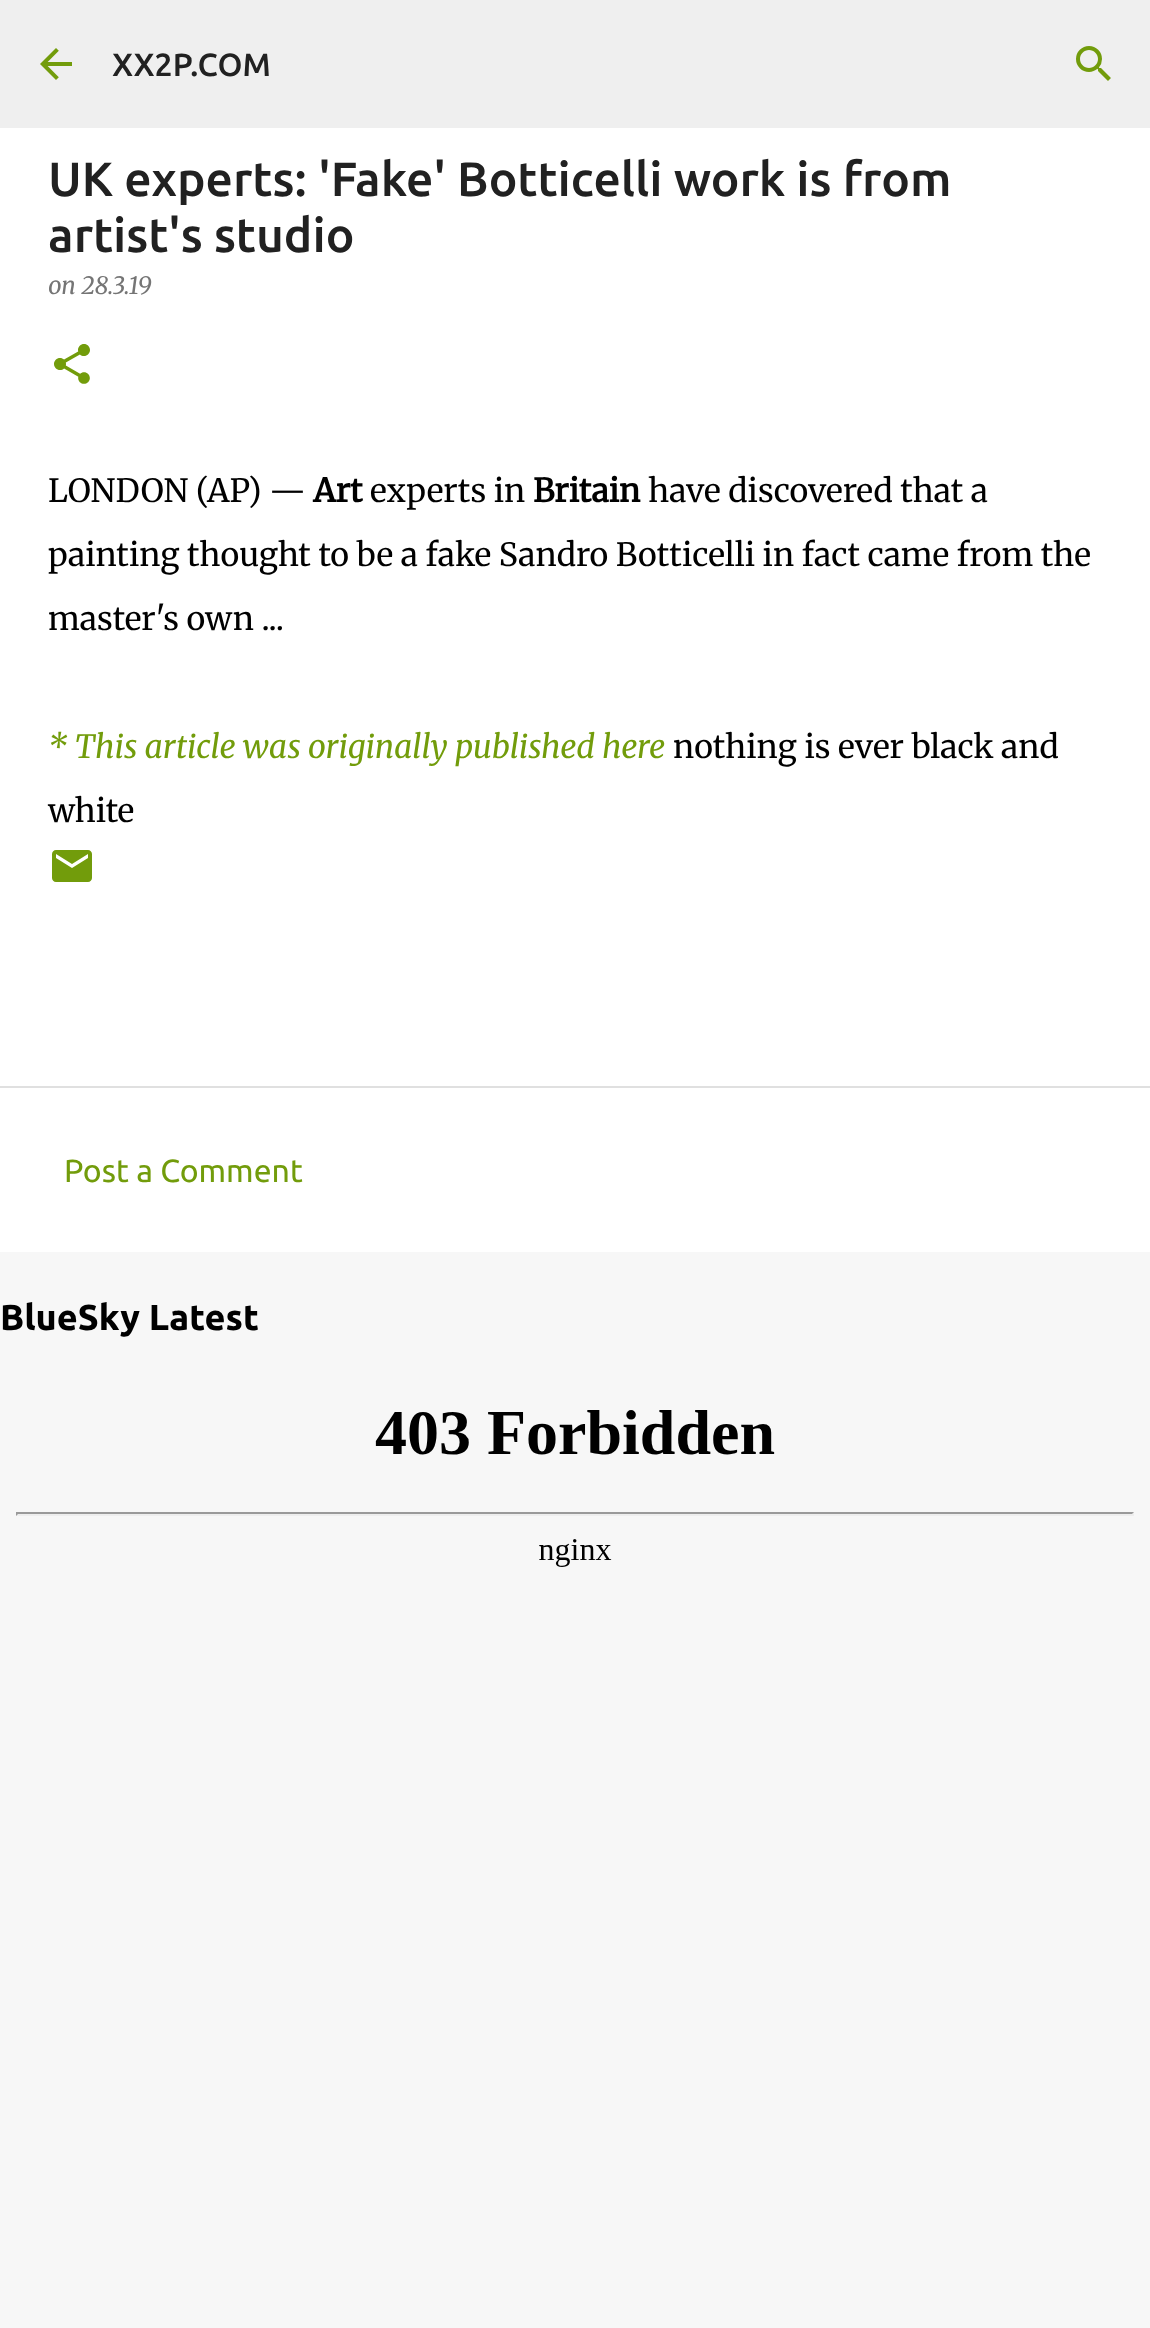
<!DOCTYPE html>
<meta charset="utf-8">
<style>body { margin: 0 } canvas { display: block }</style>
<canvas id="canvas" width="1150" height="2328"></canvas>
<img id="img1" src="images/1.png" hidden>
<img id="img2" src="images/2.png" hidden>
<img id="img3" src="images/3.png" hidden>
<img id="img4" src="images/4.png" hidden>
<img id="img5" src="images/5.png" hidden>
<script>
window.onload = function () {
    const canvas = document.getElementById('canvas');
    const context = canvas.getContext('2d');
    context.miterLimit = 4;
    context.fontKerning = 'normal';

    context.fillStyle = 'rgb(247, 247, 247)';
    context.fillRect(0, 0, 1150, 2328);
    context.fillStyle = 'rgb(239, 239, 239)';
    context.fillRect(0, 0, 1150, 128);
    context.drawImage(document.getElementById('img1'), 40, 48, 32, 32);
    context.drawImage(document.getElementById('img2'), 1076, 46, 35, 35);
    context.fillStyle = 'rgb(255, 255, 255)';
    context.fillRect(0, 128, 1150, 958);
    context.drawImage(document.getElementById('img3'), 54, 344, 36, 40);
    context.drawImage(document.getElementById('img4'), 52, 850, 40, 32);
    context.fillRect(0, 1088, 1150, 164);
    context.fillStyle = 'rgb(224, 224, 224)';
    context.fillRect(0, 1086, 1150, 2);
    context.drawImage(document.getElementById('img5'), 16, 1410, 1118, 157);
    context.font = '500 32px Ubuntu';
    context.fillStyle = 'rgb(33, 33, 33)';
    context.fillText('XX2P.COM', 112, 76);
    context.font = '500 48px Ubuntu';
    context.fillText('UK experts: \'Fake\' Botticelli work is from', 48, 196);
    context.fillText('artist\'s studio', 48, 252);
    context.font = 'italic 24px Merriweather';
    context.fillStyle = 'rgb(117, 117, 117)';
    context.fillText('on 28.3.19', 48, 294);
    context.font = '300 32px Merriweather';
    context.fillStyle = 'rgb(0, 0, 0)';
    context.fillText('LONDON (AP) —', 48, 502);
    context.font = 'bold 32px Merriweather';
    context.fillText('Art', 313, 502);
    context.font = '300 32px Merriweather';
    context.fillText('experts in', 370, 502);
    context.font = 'bold 32px Merriweather';
    context.fillText('Britain', 533, 502);
    context.font = '300 32px Merriweather';
    context.fillText('have discovered that a', 648, 502);
    context.fillText('painting thought to be a fake Sandro Botticelli in fact came from the', 48, 566);
    context.fillText('master\'s own ...', 48, 630);
    context.font = 'italic 32px Merriweather';
    context.fillStyle = 'rgb(114, 156, 11)';
    context.fillText('* This article was originally published here', 48, 758);
    context.font = '300 32px Merriweather';
    context.fillStyle = 'rgb(0, 0, 0)';
    context.fillText('nothing is ever black and', 673, 758);
    context.fillText('white', 48, 822);
    context.font = '32px Ubuntu';
    context.fillStyle = 'rgb(114, 156, 11)';
    context.fillText('Post a Comment', 64, 1182);
    context.font = 'bold 36px Ubuntu';
    context.fillStyle = 'rgb(0, 0, 0)';
    context.fillText('BlueSky Latest', 0, 1330);
};
</script>
